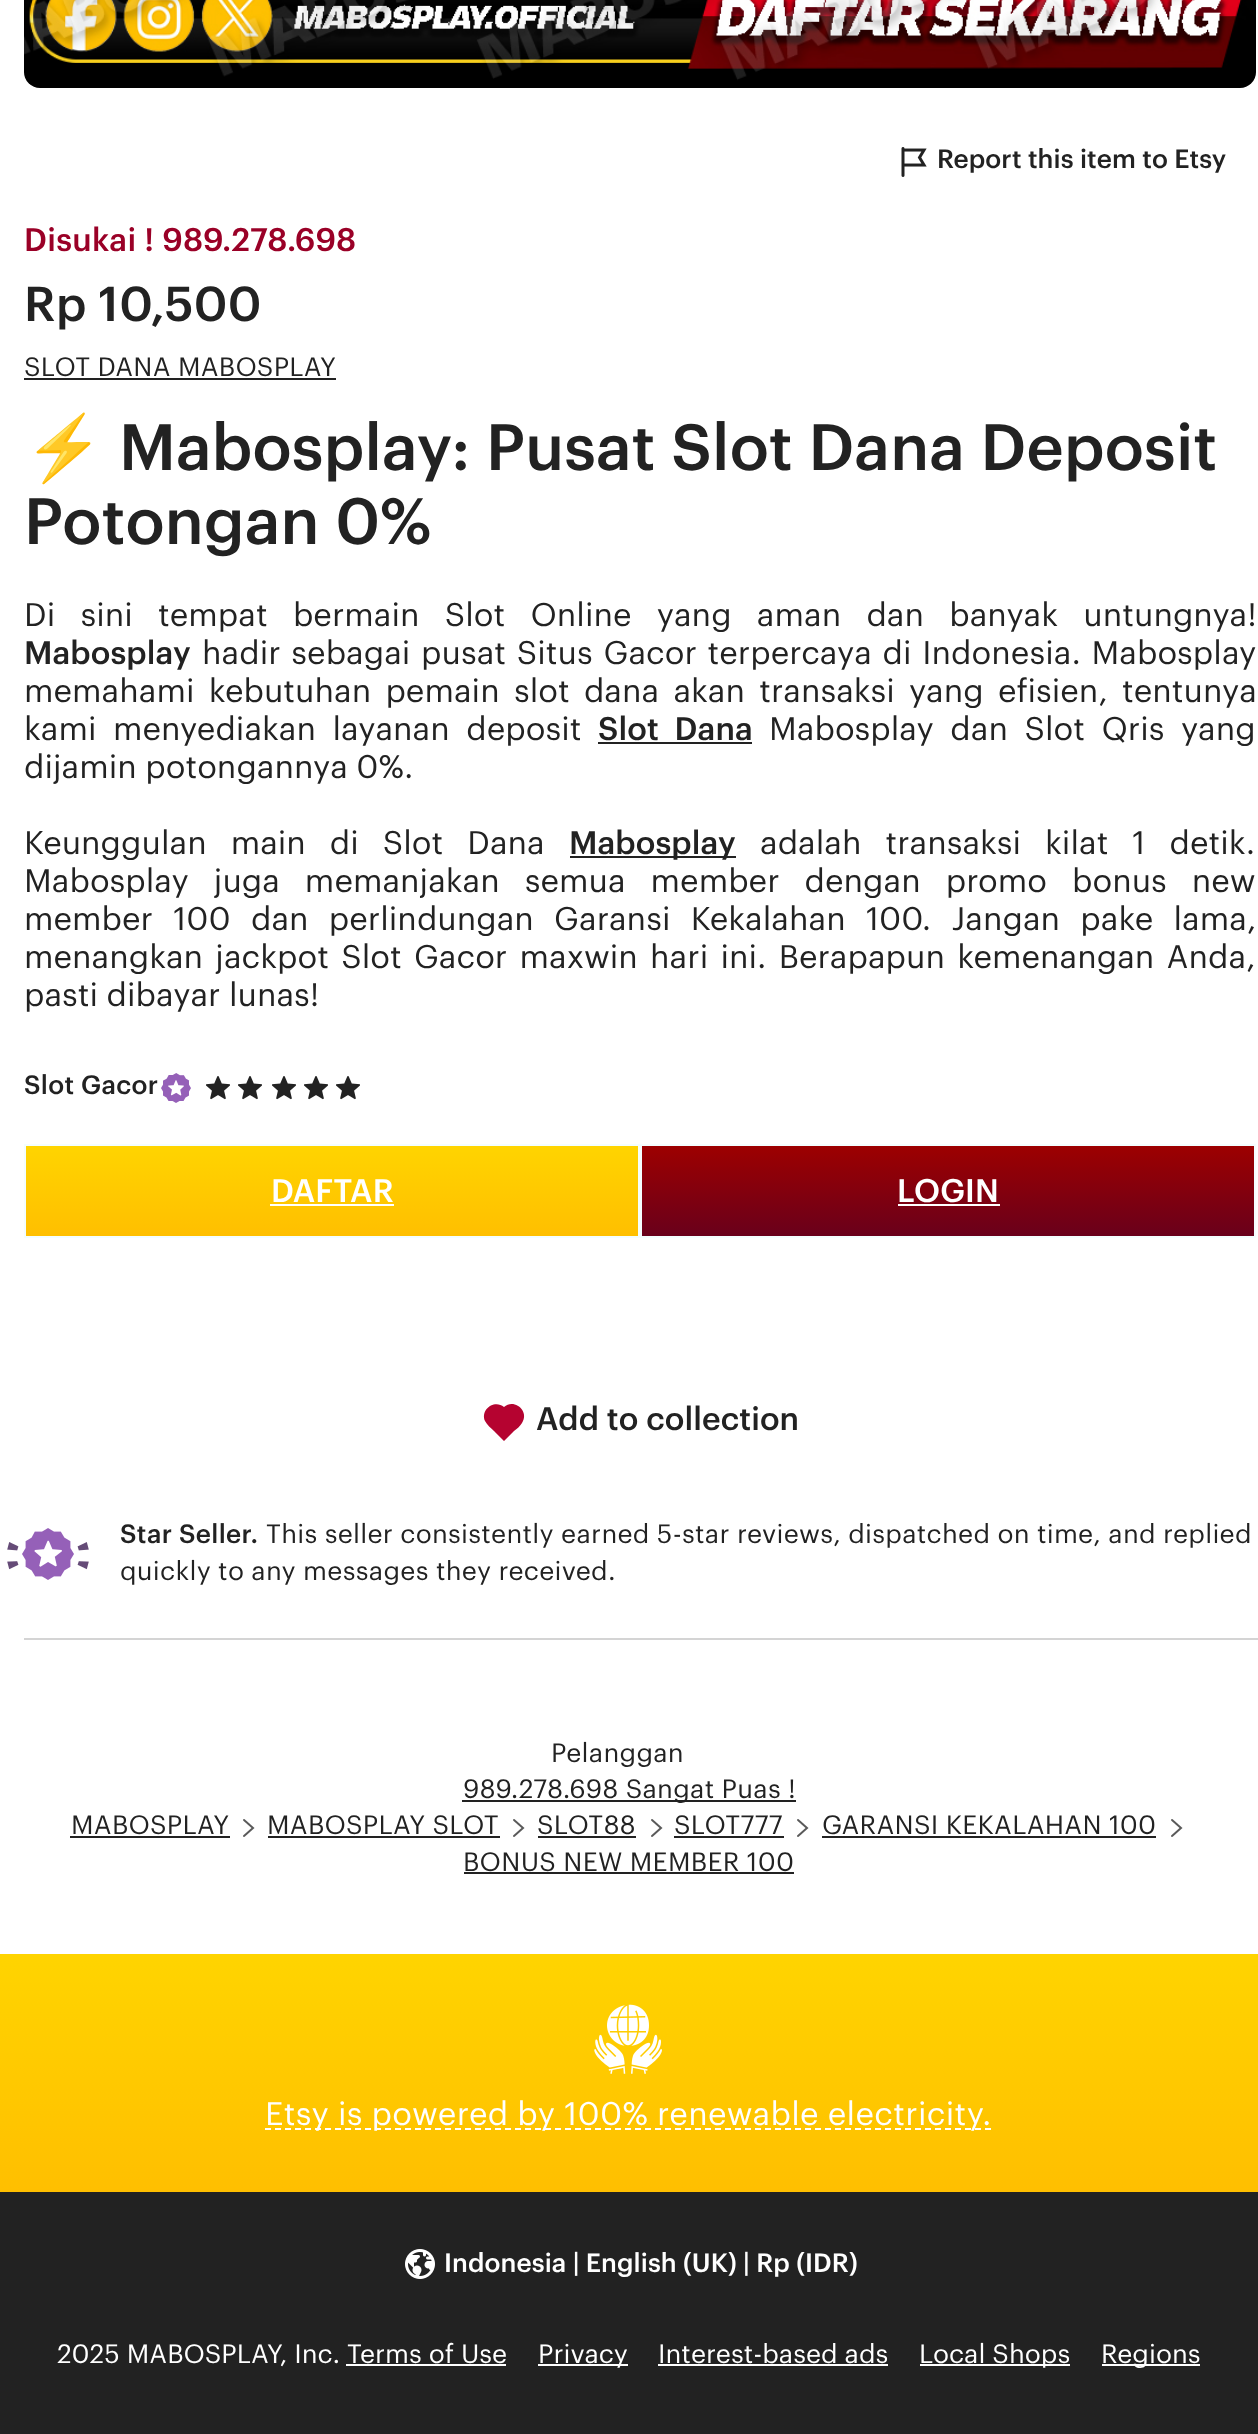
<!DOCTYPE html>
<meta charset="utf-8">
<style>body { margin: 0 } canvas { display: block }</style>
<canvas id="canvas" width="1258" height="2434"></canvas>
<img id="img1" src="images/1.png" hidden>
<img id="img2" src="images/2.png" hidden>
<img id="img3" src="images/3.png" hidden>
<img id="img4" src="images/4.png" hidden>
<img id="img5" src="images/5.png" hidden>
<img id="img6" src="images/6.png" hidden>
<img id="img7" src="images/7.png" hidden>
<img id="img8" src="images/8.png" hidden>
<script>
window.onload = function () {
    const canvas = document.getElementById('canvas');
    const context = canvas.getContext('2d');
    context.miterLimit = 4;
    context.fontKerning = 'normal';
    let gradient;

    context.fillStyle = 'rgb(255, 255, 255)';
    context.fillRect(0, 0, 1258, 2434);
    context.drawImage(document.getElementById('img1'), 24, 0, 1232, 88);
    context.drawImage(document.getElementById('img2'), 901, 147, 26, 30);
    context.fillStyle = 'rgb(34, 34, 34)';
    context.fillRect(24, 378, 312, 2);
    context.fillRect(598, 742, 154, 2);
    context.fillRect(570, 856, 166, 2);
    context.drawImage(document.getElementById('img3'), 161, 1073, 30, 30);
    context.drawImage(document.getElementById('img4'), 206, 1076, 24, 24);
    context.drawImage(document.getElementById('img4'), 238, 1076, 24, 24);
    context.drawImage(document.getElementById('img4'), 272, 1076, 24, 24);
    context.drawImage(document.getElementById('img4'), 304, 1076, 24, 24);
    context.drawImage(document.getElementById('img4'), 336, 1076, 24, 24);
    gradient = context.createLinearGradient(332, 1146, 332, 1236);
    gradient.addColorStop(0, 'rgb(255, 212, 0)');
    gradient.addColorStop(1, 'rgb(255, 191, 0)');
    context.fillStyle = gradient;
    context.fillRect(26, 1146, 612, 90);
    context.strokeStyle = 'rgb(244, 254, 255)';
    context.lineWidth = 2;
    context.strokeRect(25, 1145, 614, 92);
    context.fillStyle = 'rgb(255, 255, 255)';
    context.fillRect(270, 1204, 124, 2);
    gradient = context.createLinearGradient(948, 1146, 948, 1236);
    gradient.addColorStop(0, 'rgb(157, 0, 0)');
    gradient.addColorStop(1, 'rgb(105, 0, 27)');
    context.fillStyle = gradient;
    context.fillRect(642, 1146, 612, 90);
    context.strokeRect(641, 1145, 614, 92);
    context.fillStyle = 'rgb(255, 255, 255)';
    context.fillRect(898, 1204, 102, 2);
    context.fillStyle = 'rgb(181, 3, 48)';
    context.beginPath();
    context.moveTo(522, 1423);
    context.bezierCurveTo(520, 1426, 517, 1429, 514, 1431);
    context.lineTo(504, 1441);
    context.lineTo(494, 1431);
    context.bezierCurveTo(491, 1428, 487, 1425, 485, 1421);
    context.bezierCurveTo(480, 1409, 495, 1399, 504, 1407);
    context.bezierCurveTo(514, 1398, 530, 1411, 522, 1423);
    context.fill();
    context.drawImage(document.getElementById('img5'), 7, 1528, 82, 52);
    context.fillStyle = 'rgb(212, 212, 212)';
    context.fillRect(24, 1638, 1234, 2);
    context.fillStyle = 'rgb(34, 34, 34)';
    context.fillRect(462, 1800, 334, 2);
    context.fillRect(70, 1836, 160, 2);
    context.drawImage(document.getElementById('img6'), 243, 1819, 12, 18);
    context.fillRect(268, 1836, 232, 2);
    context.drawImage(document.getElementById('img6'), 513, 1819, 12, 18);
    context.fillRect(538, 1836, 98, 2);
    context.drawImage(document.getElementById('img6'), 651, 1819, 12, 18);
    context.fillRect(674, 1836, 110, 2);
    context.drawImage(document.getElementById('img6'), 797, 1819, 12, 18);
    context.fillRect(822, 1836, 334, 2);
    context.drawImage(document.getElementById('img6'), 1171, 1819, 12, 18);
    context.fillRect(464, 1872, 330, 2);
    gradient = context.createLinearGradient(629, 1954, 629, 2192);
    gradient.addColorStop(0, 'rgb(255, 212, 0)');
    gradient.addColorStop(1, 'rgb(255, 191, 0)');
    context.fillStyle = gradient;
    context.fillRect(0, 1954, 1258, 238);
    context.drawImage(document.getElementById('img7'), 594, 2004, 68, 70);
    context.beginPath();
    context.moveTo(265, 2129);
    context.lineTo(993, 2129);
    context.strokeStyle = 'rgb(255, 255, 255)';
    context.setLineDash([6, 4]);
    context.stroke();
    context.fillStyle = 'rgb(34, 34, 34)';
    context.fillRect(0, 2192, 1258, 242);
    context.drawImage(document.getElementById('img8'), 405, 2249, 30, 30);
    context.fillStyle = 'rgb(255, 255, 255)';
    context.fillRect(346, 2364, 160, 2);
    context.fillRect(538, 2364, 90, 2);
    context.fillRect(658, 2364, 230, 2);
    context.fillRect(920, 2364, 150, 2);
    context.fillRect(1102, 2364, 98, 2);
    context.font = '500 26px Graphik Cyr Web';
    context.fillStyle = 'rgb(34, 34, 34)';
    context.fillText('Report this item to Etsy', 937, 168);
    context.letterSpacing = '0.2px';
    context.font = '500 32px Graphik Cyr Web';
    context.fillStyle = 'rgb(154, 0, 39)';
    context.fillText('Disukai ! 989.278.698', 24, 251);
    context.letterSpacing = '0.25px';
    context.font = '500 48px Graphik Cyr Web';
    context.fillStyle = 'rgb(34, 34, 34)';
    context.fillText('Rp 10,500', 24, 321);
    context.font = '26px Graphik Cyr Web';
    context.fillText('SLOT DANA MABOSPLAY', 24, 376);
    context.letterSpacing = '0px';
    context.font = 'bold 64px Noto Color Emoji';
    context.fillText('⚡', 24, 470);
    context.font = '500 64px Graphik Cyr Web';
    context.fillText('Mabosplay: Pusat Slot Dana Deposit', 119, 470);
    context.fillText('Potongan 0%', 24, 544);
    context.wordSpacing = '16.75px';
    context.font = '32px Graphik Cyr Web';
    context.fillText('Di sini tempat bermain Slot Online yang aman dan banyak untungnya!', 24, 626);
    context.wordSpacing = '0px';
    context.font = '500 32px Graphik Cyr Web';
    context.fillText('Mabosplay', 24, 664);
    context.wordSpacing = '2.25px';
    context.font = '32px Graphik Cyr Web';
    context.fillText('hadir sebagai pusat Situs Gacor terpercaya di Indonesia. Mabosplay', 202, 664);
    context.wordSpacing = '5.75px';
    context.fillText('memahami kebutuhan pemain slot dana akan transaksi yang efisien, tentunya', 24, 702);
    context.wordSpacing = '8px';
    context.fillText('kami menyediakan layanan deposit', 24, 740);
    context.font = '500 32px Graphik Cyr Web';
    context.fillText('Slot Dana', 598, 740);
    context.font = '32px Graphik Cyr Web';
    context.fillText('Mabosplay dan Slot Qris yang', 769, 740);
    context.wordSpacing = '0px';
    context.fillText('dijamin potongannya 0%.', 24, 778);
    context.wordSpacing = '15.5px';
    context.fillText('Keunggulan main di Slot Dana', 24, 854);
    context.wordSpacing = '0px';
    context.font = '500 32px Graphik Cyr Web';
    context.fillText('Mabosplay', 569, 854);
    context.wordSpacing = '15.5px';
    context.font = '32px Graphik Cyr Web';
    context.fillText('adalah transaksi kilat 1 detik.', 760, 854);
    context.wordSpacing = '16.5px';
    context.fillText('Mabosplay juga memanjakan semua member dengan promo bonus new', 24, 892);
    context.wordSpacing = '11.75px';
    context.fillText('member 100 dan perlindungan Garansi Kekalahan 100. Jangan pake lama,', 24, 930);
    context.wordSpacing = '3.75px';
    context.fillText('menangkan jackpot Slot Gacor maxwin hari ini. Berapapun kemenangan Anda,', 24, 968);
    context.wordSpacing = '0px';
    context.fillText('pasti dibayar lunas!', 24, 1006);
    context.letterSpacing = '0.25px';
    context.font = '500 26px Graphik Cyr Web';
    context.fillText('Slot Gacor', 24, 1094);
    context.letterSpacing = '0px';
    context.font = '500 32px Graphik Cyr Web';
    context.fillStyle = 'rgb(255, 255, 255)';
    context.fillText('DAFTAR', 271, 1202);
    context.fillText('LOGIN', 897, 1202);
    context.fillStyle = 'rgb(34, 34, 34)';
    context.fillText('Add to collection', 536, 1430);
    context.letterSpacing = '0.25px';
    context.font = '500 26px Graphik Cyr Web';
    context.fillText('Star Seller.', 120, 1543);
    context.font = '26px Graphik Cyr Web';
    context.fillText('This seller consistently earned 5-star reviews, dispatched on time, and replied', 266, 1543);
    context.fillText('quickly to any messages they received.', 120, 1580);
    context.fillText('Pelanggan', 551, 1762);
    context.fillText('989.278.698 Sangat Puas !', 463, 1798);
    context.fillText('MABOSPLAY', 71, 1834);
    context.fillText('MABOSPLAY SLOT', 267, 1834);
    context.fillText('SLOT88', 537, 1834);
    context.fillText('SLOT777', 674, 1834);
    context.fillText('GARANSI KEKALAHAN 100', 822, 1834);
    context.fillText('BONUS NEW MEMBER 100', 463, 1871);
    context.letterSpacing = '0.3px';
    context.font = '32px Graphik Cyr Web';
    context.fillStyle = 'rgb(255, 255, 255)';
    context.fillText('Etsy is powered by 100% renewable electricity.', 265, 2125);
    context.letterSpacing = '0px';
    context.font = '500 26px Graphik Cyr Web';
    context.fillText('Indonesia | English (UK) | Rp (IDR)', 444, 2272);
    context.font = '26px Graphik Cyr Web';
    context.fillText('2025 MABOSPLAY, Inc. Terms of Use', 57, 2363);
    context.fillText('Privacy', 538, 2363);
    context.fillText('Interest-based ads', 658, 2363);
    context.fillText('Local Shops', 919, 2363);
    context.fillText('Regions', 1101, 2363);
};
</script>
